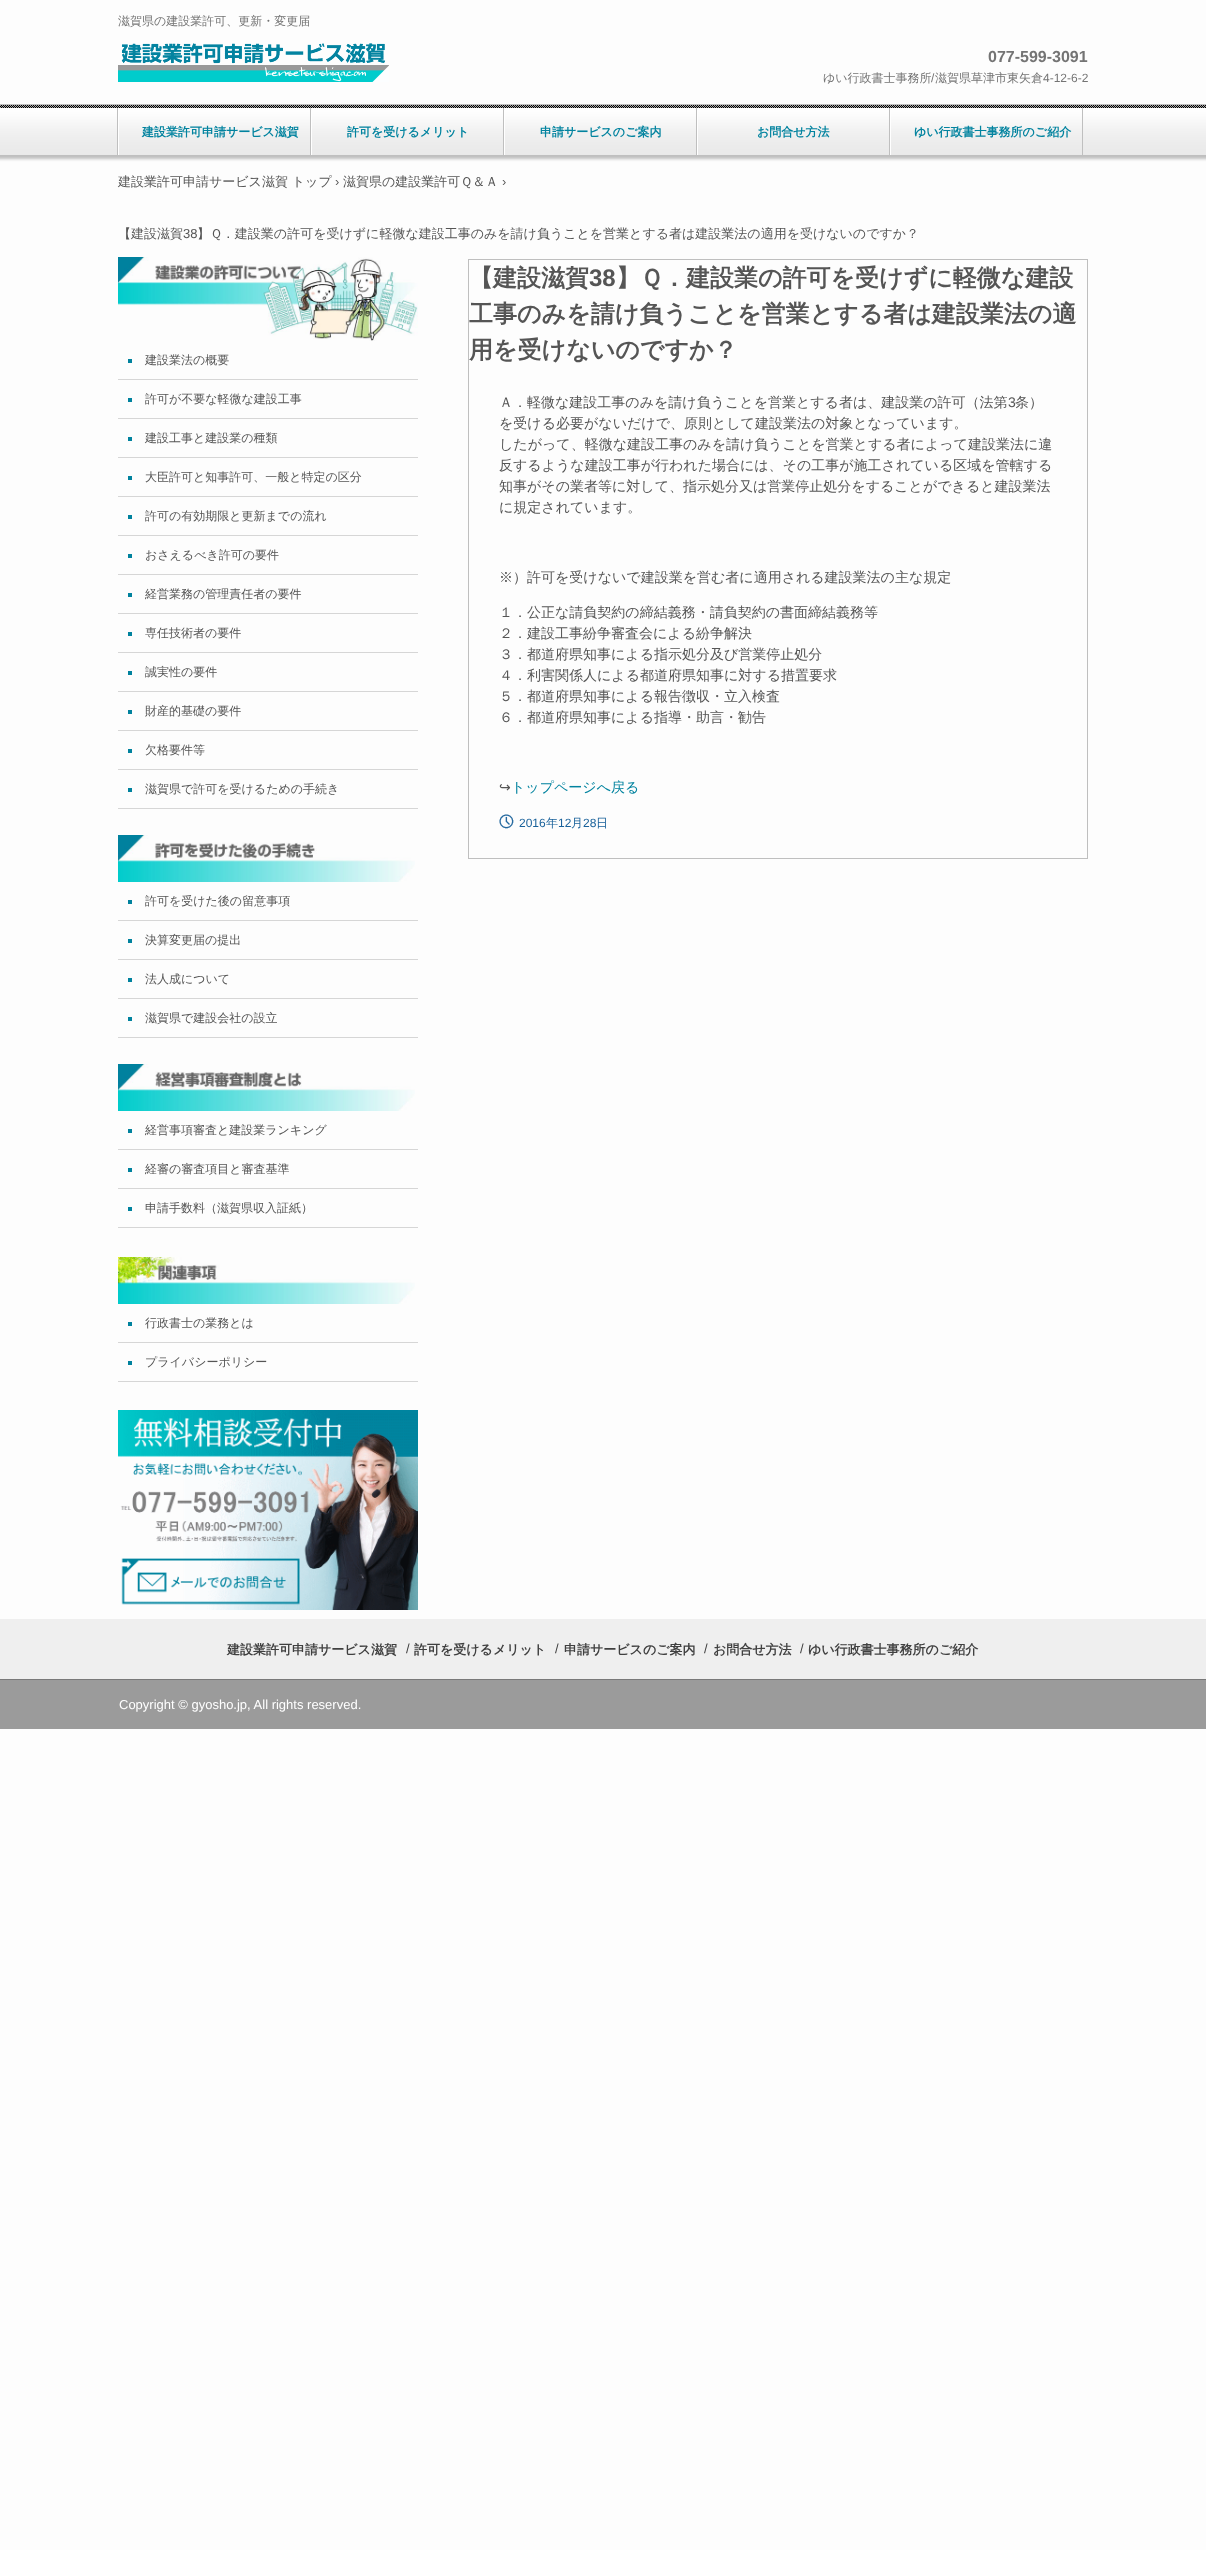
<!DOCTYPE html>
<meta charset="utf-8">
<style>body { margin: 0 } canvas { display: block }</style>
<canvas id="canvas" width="1206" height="2550"></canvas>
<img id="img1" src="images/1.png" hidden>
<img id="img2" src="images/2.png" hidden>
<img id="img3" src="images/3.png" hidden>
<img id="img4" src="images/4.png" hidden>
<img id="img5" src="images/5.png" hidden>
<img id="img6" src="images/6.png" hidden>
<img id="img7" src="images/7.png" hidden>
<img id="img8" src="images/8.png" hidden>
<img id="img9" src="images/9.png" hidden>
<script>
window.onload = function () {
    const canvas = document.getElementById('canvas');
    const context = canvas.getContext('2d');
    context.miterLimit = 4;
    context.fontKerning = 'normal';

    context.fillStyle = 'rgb(253, 253, 253)';
    context.fillRect(0, 0, 1206, 2550);
    context.drawImage(document.getElementById('img1'), 118, 43, 271, 39);
    context.fillStyle = 'rgb(191, 191, 191)';
    context.filter = 'blur(1.5px)';
    context.beginPath();
    context.rect(-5, 107, 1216, 52);
    context.fill();
    context.filter = 'none';
    context.drawImage(document.getElementById('img2'), 0, 108, 1206, 47);
    context.fillRect(0, 104, 1206, 1);
    context.drawImage(document.getElementById('img3'), 0, 105, 1206, 3);
    context.fillRect(117, 108, 1, 47);
    context.fillRect(310, 108, 1, 47);
    context.fillStyle = 'rgb(255, 255, 255)';
    context.fillRect(118, 108, 1, 47);
    context.fillStyle = 'rgb(191, 191, 191)';
    context.fillRect(503, 108, 1, 47);
    context.fillStyle = 'rgb(255, 255, 255)';
    context.fillRect(311, 108, 1, 47);
    context.fillStyle = 'rgb(191, 191, 191)';
    context.fillRect(696, 108, 1, 47);
    context.fillStyle = 'rgb(255, 255, 255)';
    context.fillRect(504, 108, 1, 47);
    context.fillStyle = 'rgb(191, 191, 191)';
    context.fillRect(889, 108, 1, 47);
    context.fillStyle = 'rgb(255, 255, 255)';
    context.fillRect(697, 108, 1, 47);
    context.fillStyle = 'rgb(191, 191, 191)';
    context.fillRect(1082, 108, 1, 47);
    context.fillStyle = 'rgb(255, 255, 255)';
    context.fillRect(890, 108, 1, 47);
    context.drawImage(document.getElementById('img4'), 118, 257, 300, 84);
    context.fillStyle = 'rgb(214, 214, 214)';
    context.fillRect(118, 379, 300, 1);
    context.fillStyle = 'rgb(0, 130, 158)';
    context.fillRect(128, 359, 4, 4);
    context.fillStyle = 'rgb(214, 214, 214)';
    context.fillRect(118, 418, 300, 1);
    context.fillStyle = 'rgb(0, 130, 158)';
    context.fillRect(128, 398, 4, 4);
    context.fillStyle = 'rgb(214, 214, 214)';
    context.fillRect(118, 457, 300, 1);
    context.fillStyle = 'rgb(0, 130, 158)';
    context.fillRect(128, 437, 4, 4);
    context.fillStyle = 'rgb(214, 214, 214)';
    context.fillRect(118, 496, 300, 1);
    context.fillStyle = 'rgb(0, 130, 158)';
    context.fillRect(128, 476, 4, 4);
    context.fillStyle = 'rgb(214, 214, 214)';
    context.fillRect(118, 535, 300, 1);
    context.fillStyle = 'rgb(0, 130, 158)';
    context.fillRect(128, 515, 4, 4);
    context.fillStyle = 'rgb(214, 214, 214)';
    context.fillRect(118, 574, 300, 1);
    context.fillStyle = 'rgb(0, 130, 158)';
    context.fillRect(128, 554, 4, 4);
    context.fillStyle = 'rgb(214, 214, 214)';
    context.fillRect(118, 613, 300, 1);
    context.fillStyle = 'rgb(0, 130, 158)';
    context.fillRect(128, 593, 4, 4);
    context.fillStyle = 'rgb(214, 214, 214)';
    context.fillRect(118, 652, 300, 1);
    context.fillStyle = 'rgb(0, 130, 158)';
    context.fillRect(128, 632, 4, 4);
    context.fillStyle = 'rgb(214, 214, 214)';
    context.fillRect(118, 691, 300, 1);
    context.fillStyle = 'rgb(0, 130, 158)';
    context.fillRect(128, 671, 4, 4);
    context.fillStyle = 'rgb(214, 214, 214)';
    context.fillRect(118, 730, 300, 1);
    context.fillStyle = 'rgb(0, 130, 158)';
    context.fillRect(128, 710, 4, 4);
    context.fillStyle = 'rgb(214, 214, 214)';
    context.fillRect(118, 769, 300, 1);
    context.fillStyle = 'rgb(0, 130, 158)';
    context.fillRect(128, 749, 4, 4);
    context.fillStyle = 'rgb(214, 214, 214)';
    context.fillRect(118, 808, 300, 1);
    context.fillStyle = 'rgb(0, 130, 158)';
    context.fillRect(128, 788, 4, 4);
    context.drawImage(document.getElementById('img5'), 118, 835, 297, 47);
    context.fillStyle = 'rgb(214, 214, 214)';
    context.fillRect(118, 920, 300, 1);
    context.fillStyle = 'rgb(0, 130, 158)';
    context.fillRect(128, 900, 4, 4);
    context.fillStyle = 'rgb(214, 214, 214)';
    context.fillRect(118, 959, 300, 1);
    context.fillStyle = 'rgb(0, 130, 158)';
    context.fillRect(128, 939, 4, 4);
    context.fillStyle = 'rgb(214, 214, 214)';
    context.fillRect(118, 998, 300, 1);
    context.fillStyle = 'rgb(0, 130, 158)';
    context.fillRect(128, 978, 4, 4);
    context.fillStyle = 'rgb(214, 214, 214)';
    context.fillRect(118, 1037, 300, 1);
    context.fillStyle = 'rgb(0, 130, 158)';
    context.fillRect(128, 1017, 4, 4);
    context.drawImage(document.getElementById('img6'), 118, 1064, 297, 47);
    context.fillStyle = 'rgb(214, 214, 214)';
    context.fillRect(118, 1149, 300, 1);
    context.fillStyle = 'rgb(0, 130, 158)';
    context.fillRect(128, 1129, 4, 4);
    context.fillStyle = 'rgb(214, 214, 214)';
    context.fillRect(118, 1188, 300, 1);
    context.fillStyle = 'rgb(0, 130, 158)';
    context.fillRect(128, 1168, 4, 4);
    context.fillStyle = 'rgb(214, 214, 214)';
    context.fillRect(118, 1227, 300, 1);
    context.fillStyle = 'rgb(0, 130, 158)';
    context.fillRect(128, 1207, 4, 4);
    context.drawImage(document.getElementById('img7'), 118, 1257, 297, 47);
    context.fillStyle = 'rgb(214, 214, 214)';
    context.fillRect(118, 1342, 300, 1);
    context.fillStyle = 'rgb(0, 130, 158)';
    context.fillRect(128, 1322, 4, 4);
    context.fillStyle = 'rgb(214, 214, 214)';
    context.fillRect(118, 1381, 300, 1);
    context.fillStyle = 'rgb(0, 130, 158)';
    context.fillRect(128, 1361, 4, 4);
    context.drawImage(document.getElementById('img8'), 118, 1410, 300, 200);
    context.strokeStyle = 'rgb(191, 191, 191)';
    context.strokeRect(468.5, 259.5, 619, 599);
    context.drawImage(document.getElementById('img9'), 499, 814, 15, 15);
    context.fillStyle = 'rgb(239, 239, 239)';
    context.fillRect(0, 1619, 1206, 60);
    context.fillStyle = 'rgb(155, 155, 155)';
    context.fillRect(0, 1680, 1206, 49);
    context.fillStyle = 'rgb(121, 121, 121)';
    context.fillRect(0, 1679, 1206, 1);
    context.font = '500 12px WenQuanYi Zen Hei';
    context.fillStyle = 'rgb(116, 116, 116)';
    context.fillText('滋賀県の建設業許可、更新・変更届', 118, 25);
    context.font = 'bold 16px Liberation Sans';
    context.fillText('077-599-3091', 988, 62);
    context.font = '500 12px WenQuanYi Zen Hei';
    context.fillText('ゆい行政書士事務所', 823, 82);
    context.font = '12px Liberation Sans';
    context.fillText('/', 931, 82);
    context.font = '500 12px WenQuanYi Zen Hei';
    context.fillText('滋賀県草津市東矢倉', 935, 82);
    context.font = '12px Liberation Sans';
    context.fillText('4-12-6-2', 1043, 82);
    context.font = 'bold 12px WenQuanYi Zen Hei';
    context.fillStyle = 'rgb(2, 131, 159)';
    context.fillText('建設業許可申請サービス滋賀', 142, 136);
    context.fillText('許可を受けるメリット', 347, 136);
    context.fillText('申請サービスのご案内', 540, 136);
    context.fillText('お問合せ方法', 757, 136);
    context.fillText('ゆい行政書士事務所のご紹介', 914, 136);
    context.font = '500 13px WenQuanYi Zen Hei';
    context.fillStyle = 'rgb(85, 85, 85)';
    context.fillText('建設業許可申請サービス滋賀 トップ', 118, 186);
    context.font = '13px Liberation Sans';
    context.fillText('›', 335, 186);
    context.font = '500 13px WenQuanYi Zen Hei';
    context.fillText('滋賀県の建設業許可Ｑ＆Ａ', 343, 186);
    context.font = '13px Liberation Sans';
    context.fillText('›', 502, 186);
    context.font = '500 13px WenQuanYi Zen Hei';
    context.fillText('【建設滋賀', 118, 238);
    context.font = '13px Liberation Sans';
    context.fillText('38', 183, 238);
    context.font = '500 13px WenQuanYi Zen Hei';
    context.fillText('】Ｑ．建設業の許可を受けずに軽微な建設工事のみを請け負うことを営業とする者は建設業法の適用を受けないのですか？', 197, 238);
    context.font = '500 12px WenQuanYi Zen Hei';
    context.fillText('建設業法の概要', 145, 364);
    context.fillText('許可が不要な軽微な建設工事', 145, 403);
    context.fillText('建設工事と建設業の種類', 145, 442);
    context.fillText('大臣許可と知事許可、一般と特定の区分', 145, 481);
    context.fillText('許可の有効期限と更新までの流れ', 145, 520);
    context.fillText('おさえるべき許可の要件', 145, 559);
    context.fillText('経営業務の管理責任者の要件', 145, 598);
    context.fillText('専任技術者の要件', 145, 637);
    context.fillText('誠実性の要件', 145, 676);
    context.fillText('財産的基礎の要件', 145, 715);
    context.fillText('欠格要件等', 145, 754);
    context.fillText('滋賀県で許可を受けるための手続き', 145, 793);
    context.fillText('許可を受けた後の留意事項', 145, 905);
    context.fillText('決算変更届の提出', 145, 944);
    context.fillText('法人成について', 145, 983);
    context.fillText('滋賀県で建設会社の設立', 145, 1022);
    context.fillText('経営事項審査と建設業ランキング', 145, 1134);
    context.fillText('経審の審査項目と審査基準', 145, 1173);
    context.fillText('申請手数料（滋賀県収入証紙）', 145, 1212);
    context.fillText('行政書士の業務とは', 145, 1327);
    context.fillText('プライバシーポリシー', 145, 1366);
    context.font = 'bold 24px WenQuanYi Zen Hei';
    context.fillText('【建設滋賀', 469, 286);
    context.font = 'bold 24px Liberation Sans';
    context.fillText('38', 589, 286);
    context.font = 'bold 24px WenQuanYi Zen Hei';
    context.fillText('】Ｑ．建設業の許可を受けずに軽微な建設', 616, 286);
    context.fillText('工事のみを請け負うことを営業とする者は建設業法の適', 469, 322);
    context.fillText('用を受けないのですか？', 469, 358);
    context.font = '500 14px WenQuanYi Zen Hei';
    context.fillText('Ａ．軽微な建設工事のみを請け負うことを営業とする者は、建設業の許可（法第', 499, 407);
    context.font = '14px Liberation Sans';
    context.fillText('3', 1008, 407);
    context.font = '500 14px WenQuanYi Zen Hei';
    context.fillText('条）', 1015, 407);
    context.fillText('を受ける必要がないだけで、原則として建設業法の対象となっています。', 499, 428);
    context.fillText('したがって、軽微な建設工事のみを請け負うことを営業とする者によって建設業法に違', 499, 449);
    context.fillText('反するような建設工事が行われた場合には、その工事が施工されている区域を管轄する', 499, 470);
    context.fillText('知事がその業者等に対して、指示処分又は営業停止処分をすることができると建設業法', 499, 491);
    context.fillText('に規定されています。', 499, 512);
    context.fillText('※）許可を受けないで建設業を営む者に適用される建設業法の主な規定', 499, 582);
    context.fillText('１．公正な請負契約の締結義務・請負契約の書面締結義務等', 499, 617);
    context.fillText('２．建設工事紛争審査会による紛争解決', 499, 638);
    context.fillText('３．都道府県知事による指示処分及び営業停止処分', 499, 659);
    context.fillText('４．利害関係人による都道府県知事に対する措置要求', 499, 680);
    context.fillText('５．都道府県知事による報告徴収・立入検査', 499, 701);
    context.fillText('６．都道府県知事による指導・助言・勧告', 499, 722);
    context.font = '14px DejaVu Sans';
    context.fillText('↪', 499, 792);
    context.font = '500 14px WenQuanYi Zen Hei';
    context.fillStyle = 'rgb(2, 131, 159)';
    context.fillText('トップページへ戻る', 511, 792);
    context.font = '12px Liberation Sans';
    context.fillStyle = 'rgb(25, 97, 154)';
    context.fillText('2016', 519, 827);
    context.font = '500 12px WenQuanYi Zen Hei';
    context.fillText('年', 546, 827);
    context.font = '12px Liberation Sans';
    context.fillText('12', 558, 827);
    context.font = '500 12px WenQuanYi Zen Hei';
    context.fillText('月', 571, 827);
    context.font = '12px Liberation Sans';
    context.fillText('28', 583, 827);
    context.font = '500 12px WenQuanYi Zen Hei';
    context.fillText('日', 596, 827);
    context.font = 'bold 13px WenQuanYi Zen Hei';
    context.fillStyle = 'rgb(64, 64, 64)';
    context.fillText('建設業許可申請サービス滋賀', 227, 1654);
    context.font = '13px Liberation Sans';
    context.fillText('/', 406, 1653);
    context.font = 'bold 13px WenQuanYi Zen Hei';
    context.fillText('許可を受けるメリット', 414, 1654);
    context.font = '13px Liberation Sans';
    context.fillText('/', 555, 1653);
    context.font = 'bold 13px WenQuanYi Zen Hei';
    context.fillText('申請サービスのご案内', 564, 1654);
    context.font = '13px Liberation Sans';
    context.fillText('/', 704, 1653);
    context.font = 'bold 13px WenQuanYi Zen Hei';
    context.fillText('お問合せ方法', 713, 1654);
    context.font = '13px Liberation Sans';
    context.fillText('/', 800, 1653);
    context.font = 'bold 13px WenQuanYi Zen Hei';
    context.fillText('ゆい行政書士事務所のご紹介', 808, 1654);
    context.font = '13px Liberation Sans';
    context.fillStyle = 'rgb(255, 255, 255)';
    context.fillText('Copyright © gyosho.jp, All rights reserved.', 119, 1709);
};
</script>
